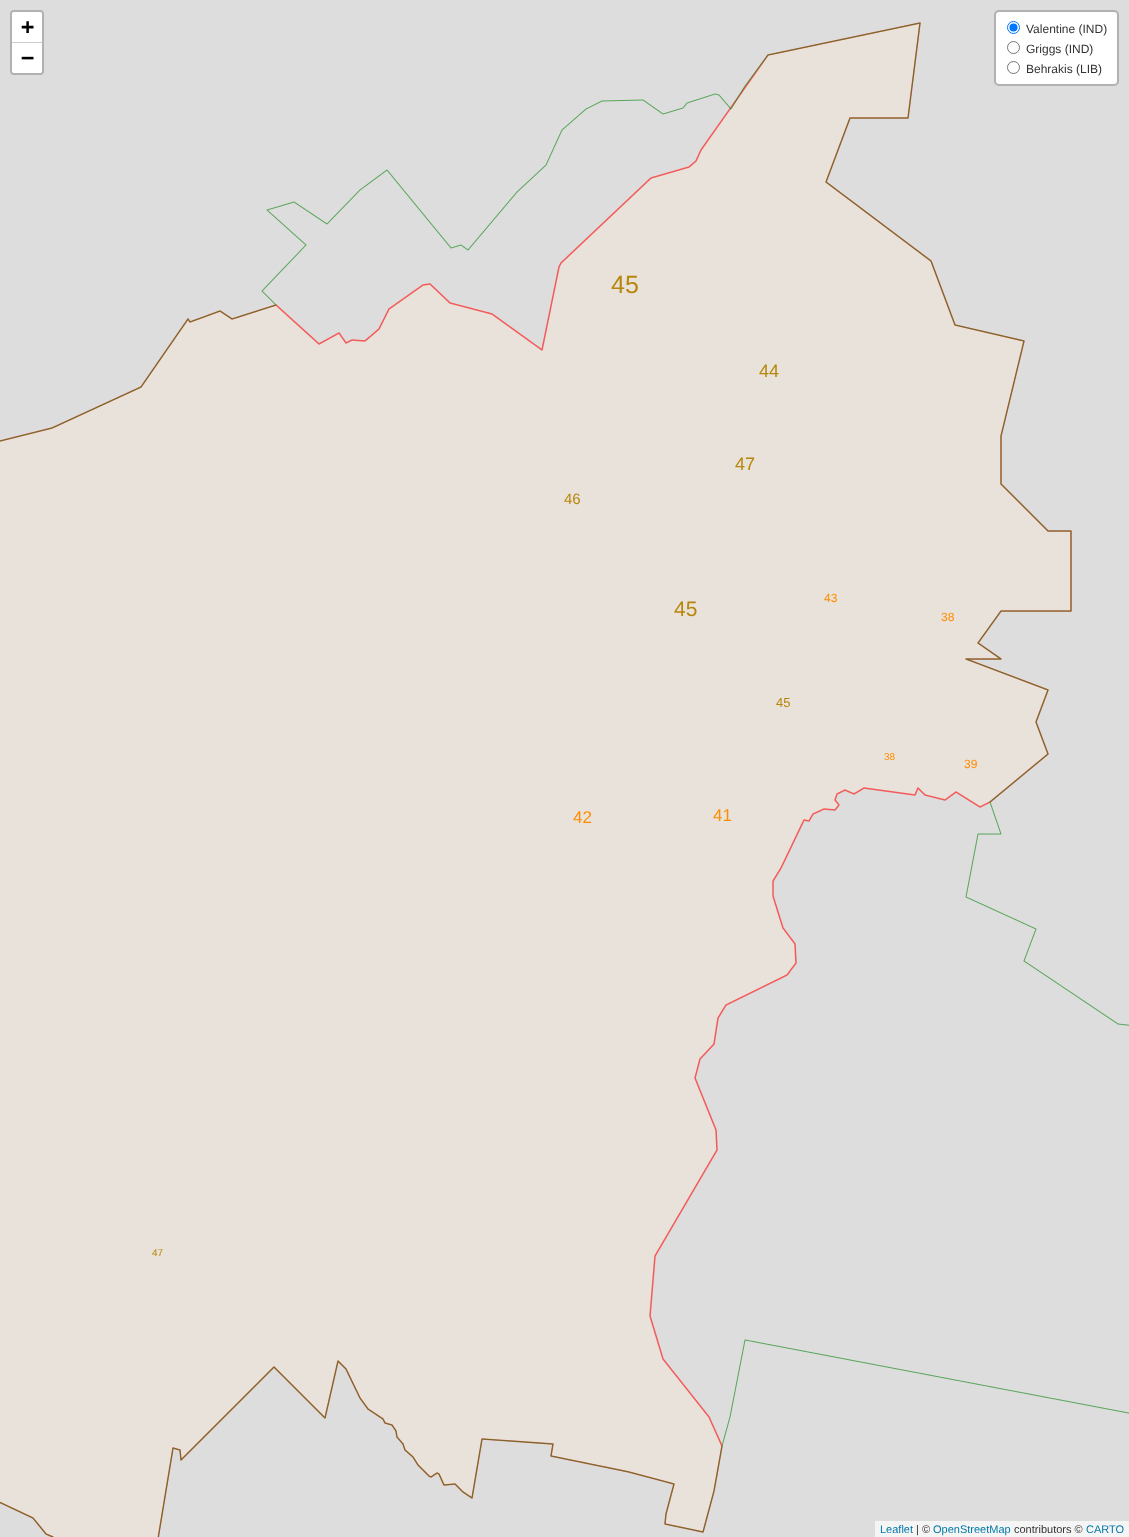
<!DOCTYPE html>
<meta charset="utf-8">
<style>body { margin: 0 } canvas { display: block }</style>
<canvas id="canvas" width="1129" height="1537"></canvas>
<img id="img1" src="images/1.png" hidden>
<script>
window.onload = function () {
    const canvas = document.getElementById('canvas');
    const context = canvas.getContext('2d');
    context.miterLimit = 4;
    context.fontKerning = 'normal';

    context.fillStyle = 'rgb(221, 221, 221)';
    context.fillRect(0, 0, 1129, 1537);
    context.drawImage(document.getElementById('img1'), 0, 22, 1129, 1515);
    context.beginPath();
    context.roundRect(11, 11, 32, 63, 3);
    context.strokeStyle = 'rgb(177, 177, 177)';
    context.lineWidth = 2;
    context.stroke();
    context.fillStyle = 'rgb(255, 255, 255)';
    context.beginPath();
    context.roundRect(12, 12, 30, 31, [2, 2, 0, 0]);
    context.fill();
    context.fillStyle = 'rgb(204, 204, 204)';
    context.fillRect(12, 42, 30, 1);
    context.fillStyle = 'rgb(255, 255, 255)';
    context.beginPath();
    context.roundRect(12, 43, 30, 30, [0, 0, 2, 2]);
    context.fill();
    context.beginPath();
    context.roundRect(995, 11, 123, 74, 4);
    context.fill();
    context.stroke();
    context.beginPath();
    context.arc(1013.5, 27.5, 6, 0, 2 * Math.PI);
    context.strokeStyle = 'rgb(0, 117, 255)';
    context.lineWidth = 1;
    context.stroke();
    context.fillStyle = 'rgb(0, 117, 255)';
    context.beginPath();
    context.arc(1013.5, 27.5, 4, 0, 2 * Math.PI);
    context.fill();
    context.beginPath();
    context.arc(1013.5, 47.5, 6, 0, 2 * Math.PI);
    context.strokeStyle = 'rgb(118, 118, 118)';
    context.stroke();
    context.beginPath();
    context.arc(1013.5, 67.5, 6, 0, 2 * Math.PI);
    context.stroke();
    context.fillStyle = 'rgb(245, 245, 245)';
    context.fillRect(875, 1521, 254, 16);
    context.font = 'bold 22px DejaVu Sans Mono';
    context.fillStyle = 'rgb(0, 0, 0)';
    context.fillText('+', 21, 34);
    context.fillText('−', 21, 65);
    context.font = '12px Liberation Sans';
    context.fillStyle = 'rgb(51, 51, 51)';
    context.fillText('Valentine (IND)', 1026, 33);
    context.fillText('Griggs (IND)', 1026, 53);
    context.fillText('Behrakis (LIB)', 1026, 73);
    context.font = '11px Liberation Sans';
    context.fillStyle = 'rgb(0, 120, 168)';
    context.fillText('Leaflet', 880, 1533);
    context.fillStyle = 'rgb(51, 51, 51)';
    context.fillText('| ©', 916, 1533);
    context.fillStyle = 'rgb(0, 120, 168)';
    context.fillText('OpenStreetMap', 933, 1533);
    context.fillStyle = 'rgb(51, 51, 51)';
    context.fillText('contributors ©', 1014, 1533);
    context.fillStyle = 'rgb(0, 120, 168)';
    context.fillText('CARTO', 1086, 1533);
    context.font = '25px Liberation Sans';
    context.fillStyle = 'rgb(184, 134, 11)';
    context.fillText('45', 611, 293);
    context.font = '18px Liberation Sans';
    context.fillText('44', 759, 377);
    context.fillText('47', 735, 470);
    context.font = '15px Liberation Sans';
    context.fillText('46', 564, 504);
    context.font = '12px Liberation Sans';
    context.fillStyle = 'rgb(255, 140, 0)';
    context.fillText('43', 824, 602);
    context.font = '21px Liberation Sans';
    context.fillStyle = 'rgb(184, 134, 11)';
    context.fillText('45', 674, 616);
    context.font = '12px Liberation Sans';
    context.fillStyle = 'rgb(255, 140, 0)';
    context.fillText('38', 941, 621);
    context.font = '13px Liberation Sans';
    context.fillStyle = 'rgb(184, 134, 11)';
    context.fillText('45', 776, 707);
    context.font = '10px Liberation Sans';
    context.fillStyle = 'rgb(255, 140, 0)';
    context.fillText('38', 884, 760);
    context.font = '12px Liberation Sans';
    context.fillText('39', 964, 768);
    context.font = '17px Liberation Sans';
    context.fillText('42', 573, 823);
    context.fillText('41', 713, 821);
    context.font = '10px Liberation Sans';
    context.fillStyle = 'rgb(184, 134, 11)';
    context.fillText('47', 152, 1256);
};
</script>
